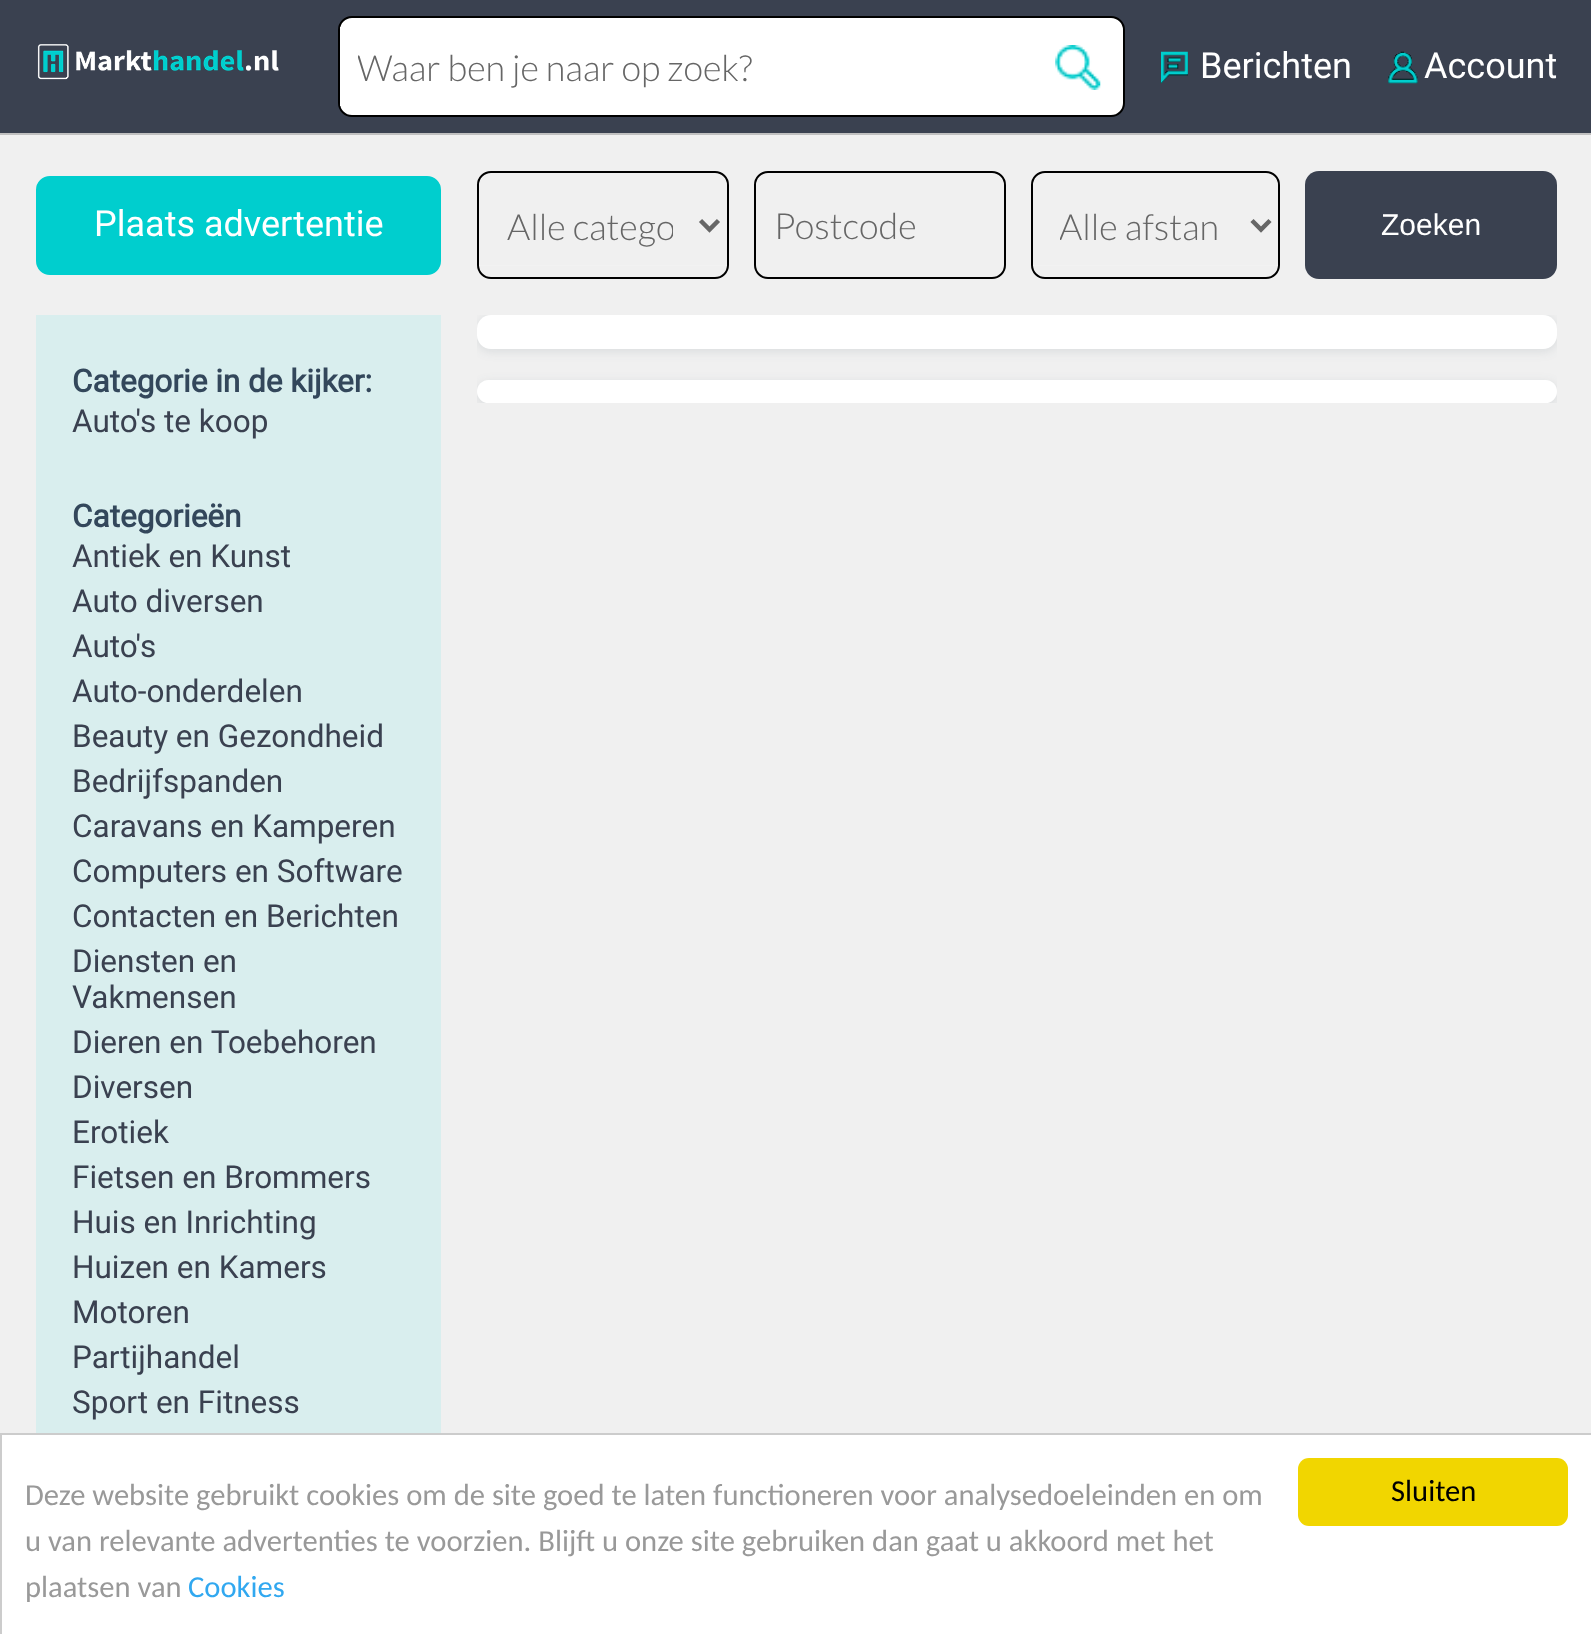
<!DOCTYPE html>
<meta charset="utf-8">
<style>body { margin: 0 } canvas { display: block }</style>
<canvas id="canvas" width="1591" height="1634"></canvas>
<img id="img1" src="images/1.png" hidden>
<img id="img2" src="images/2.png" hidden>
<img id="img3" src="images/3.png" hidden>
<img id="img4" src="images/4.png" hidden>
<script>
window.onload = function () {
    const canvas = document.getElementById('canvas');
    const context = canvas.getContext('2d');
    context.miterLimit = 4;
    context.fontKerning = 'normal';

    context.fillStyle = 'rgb(240, 240, 240)';
    context.fillRect(0, 0, 1591, 1634);
    context.fillStyle = 'rgb(58, 65, 80)';
    context.fillRect(0, 0, 1591, 133);
    context.fillStyle = 'rgb(192, 192, 192)';
    context.fillRect(0, 133, 1591, 2);
    context.drawImage(document.getElementById('img1'), 37, 44, 242, 36);
    context.fillStyle = 'rgb(255, 255, 255)';
    context.beginPath();
    context.roundRect(339, 17, 785, 99, 13);
    context.fill();
    context.strokeStyle = 'rgb(0, 0, 0)';
    context.lineWidth = 2;
    context.stroke();
    context.fillRect(340, 27, 1, 79);
    context.drawImage(document.getElementById('img2'), 1055, 45, 46, 45);
    context.drawImage(document.getElementById('img3'), 1161, 51, 27, 33);
    context.drawImage(document.getElementById('img4'), 1388, 51, 30, 33);
    context.fillStyle = 'rgb(0, 206, 206)';
    context.beginPath();
    context.roundRect(37, 177, 403, 97, 13);
    context.fill();
    context.strokeStyle = 'rgb(0, 206, 206)';
    context.stroke();
    context.beginPath();
    context.roundRect(478, 172, 250, 106, 13);
    context.strokeStyle = 'rgb(0, 0, 0)';
    context.stroke();
    context.fillStyle = 'rgb(242, 242, 242)';
    context.fillRect(479, 265, 248, 1);
    context.beginPath();
    context.moveTo(700.5, 220.5);
    context.lineTo(709.5, 229.5);
    context.lineTo(718.5, 220.5);
    context.strokeStyle = 'rgb(102, 102, 102)';
    context.lineWidth = 4.5;
    context.stroke();
    context.beginPath();
    context.roundRect(755, 172, 250, 106, 13);
    context.strokeStyle = 'rgb(0, 0, 0)';
    context.lineWidth = 2;
    context.stroke();
    context.beginPath();
    context.roundRect(1032, 172, 247, 106, 13);
    context.stroke();
    context.fillRect(1033, 265, 245, 1);
    context.beginPath();
    context.moveTo(1252, 220.5);
    context.lineTo(1261, 229.5);
    context.lineTo(1270, 220.5);
    context.strokeStyle = 'rgb(102, 102, 102)';
    context.lineWidth = 4.5;
    context.stroke();
    context.fillStyle = 'rgb(58, 65, 80)';
    context.beginPath();
    context.roundRect(1305, 171, 252, 108, 14);
    context.fill();
    context.fillStyle = 'rgb(217, 238, 238)';
    context.fillRect(36, 315, 405, 1118);
    context.save();
    context.beginPath();
    context.rect(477, 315, 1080, 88);
    context.clip();
    context.fillStyle = 'rgba(45, 62, 80, 0.12)';
    context.filter = 'blur(5.5px)';
    context.beginPath();
    context.roundRect(477, 317, 1080, 34, 14);
    context.fill();
    context.filter = 'none';
    context.restore();
    context.fillStyle = 'rgb(255, 255, 255)';
    context.beginPath();
    context.roundRect(477, 315, 1080, 34, 14);
    context.fill();
    context.save();
    context.beginPath();
    context.rect(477, 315, 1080, 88);
    context.clip();
    context.fillStyle = 'rgba(45, 62, 80, 0.12)';
    context.filter = 'blur(5.5px)';
    context.beginPath();
    context.roundRect(477, 383, 1080, 22, 11);
    context.fill();
    context.filter = 'none';
    context.restore();
    context.beginPath();
    context.roundRect(477, 380, 1080, 23, 11.5);
    context.fill();
    context.beginPath();
    context.rect(1, 1434, 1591, 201);
    context.fill();
    context.strokeStyle = 'rgb(204, 204, 204)';
    context.lineWidth = 2;
    context.stroke();
    context.fillStyle = 'rgb(241, 214, 0)';
    context.beginPath();
    context.roundRect(1298, 1458, 270, 68, 11);
    context.fill();
    context.save();
    context.beginPath();
    context.rect(358, 45, 643, 43);
    context.clip();
    context.font = '300 36px Lato';
    context.fillStyle = 'rgb(102, 102, 102)';
    context.fillText('Waar ben je naar op zoek?', 357, 81);
    context.restore();
    context.font = '36px Roboto';
    context.fillStyle = 'rgb(255, 255, 255)';
    context.fillText('Berichten', 1200, 78);
    context.fillText('Account', 1424, 78);
    context.fillText('Plaats advertentie', 94, 236);
    context.save();
    context.beginPath();
    context.rect(506, 200, 167, 48);
    context.clip();
    context.font = '300 36px Lato';
    context.fillStyle = 'rgb(102, 102, 102)';
    context.fillText('Alle catego', 507, 240);
    context.restore();
    context.font = '300 36px Lato';
    context.fillStyle = 'rgb(102, 102, 102)';
    context.fillText('Postcode', 774, 239);
    context.save();
    context.beginPath();
    context.rect(1060, 200, 164, 48);
    context.clip();
    context.fillText('Alle afstan', 1059, 240);
    context.restore();
    context.font = '30px Liberation Sans';
    context.fillStyle = 'rgb(255, 255, 255)';
    context.fillText('Zoeken', 1381, 235);
    context.font = 'bold 31.5px Roboto';
    context.fillStyle = 'rgb(51, 71, 91)';
    context.fillText('Categorie in de kijker:', 72, 392);
    context.font = '31.5px Roboto';
    context.fillStyle = 'rgb(58, 65, 80)';
    context.fillText('Auto\'s te koop', 72, 432);
    context.font = 'bold 31.5px Roboto';
    context.fillStyle = 'rgb(51, 71, 91)';
    context.fillText('Categorieën', 72, 527);
    context.font = '31.5px Roboto';
    context.fillStyle = 'rgb(58, 65, 80)';
    context.fillText('Antiek en Kunst', 72, 567);
    context.fillText('Auto diversen', 72, 612);
    context.fillText('Auto\'s', 72, 657);
    context.fillText('Auto-onderdelen', 72, 702);
    context.fillText('Beauty en Gezondheid', 72, 747);
    context.fillText('Bedrijfspanden', 72, 792);
    context.fillText('Caravans en Kamperen', 72, 837);
    context.fillText('Computers en Software', 72, 882);
    context.fillText('Contacten en Berichten', 72, 927);
    context.fillText('Diensten en', 72, 972);
    context.fillText('Vakmensen', 72, 1008);
    context.fillText('Dieren en Toebehoren', 72, 1053);
    context.fillText('Diversen', 72, 1098);
    context.fillText('Erotiek', 72, 1143);
    context.fillText('Fietsen en Brommers', 72, 1188);
    context.fillText('Huis en Inrichting', 72, 1233);
    context.fillText('Huizen en Kamers', 72, 1278);
    context.fillText('Motoren', 72, 1323);
    context.fillText('Partijhandel', 72, 1368);
    context.fillText('Sport en Fitness', 72, 1413);
    context.font = '30.6px Carlito';
    context.fillStyle = 'rgb(153, 153, 153)';
    context.fillText('Deze website gebruikt cookies om de site goed te laten functioneren voor analysedoeleinden en om', 25, 1505);
    context.fillText('u van relevante advertenties te voorzien. Blijft u onze site gebruiken dan gaat u akkoord met het', 25, 1551);
    context.fillText('plaatsen van', 25, 1597);
    context.fillStyle = 'rgb(49, 168, 240)';
    context.fillText('Cookies', 188, 1597);
    context.fillStyle = 'rgb(0, 0, 0)';
    context.fillText('Sluiten', 1391, 1501);
};
</script>
